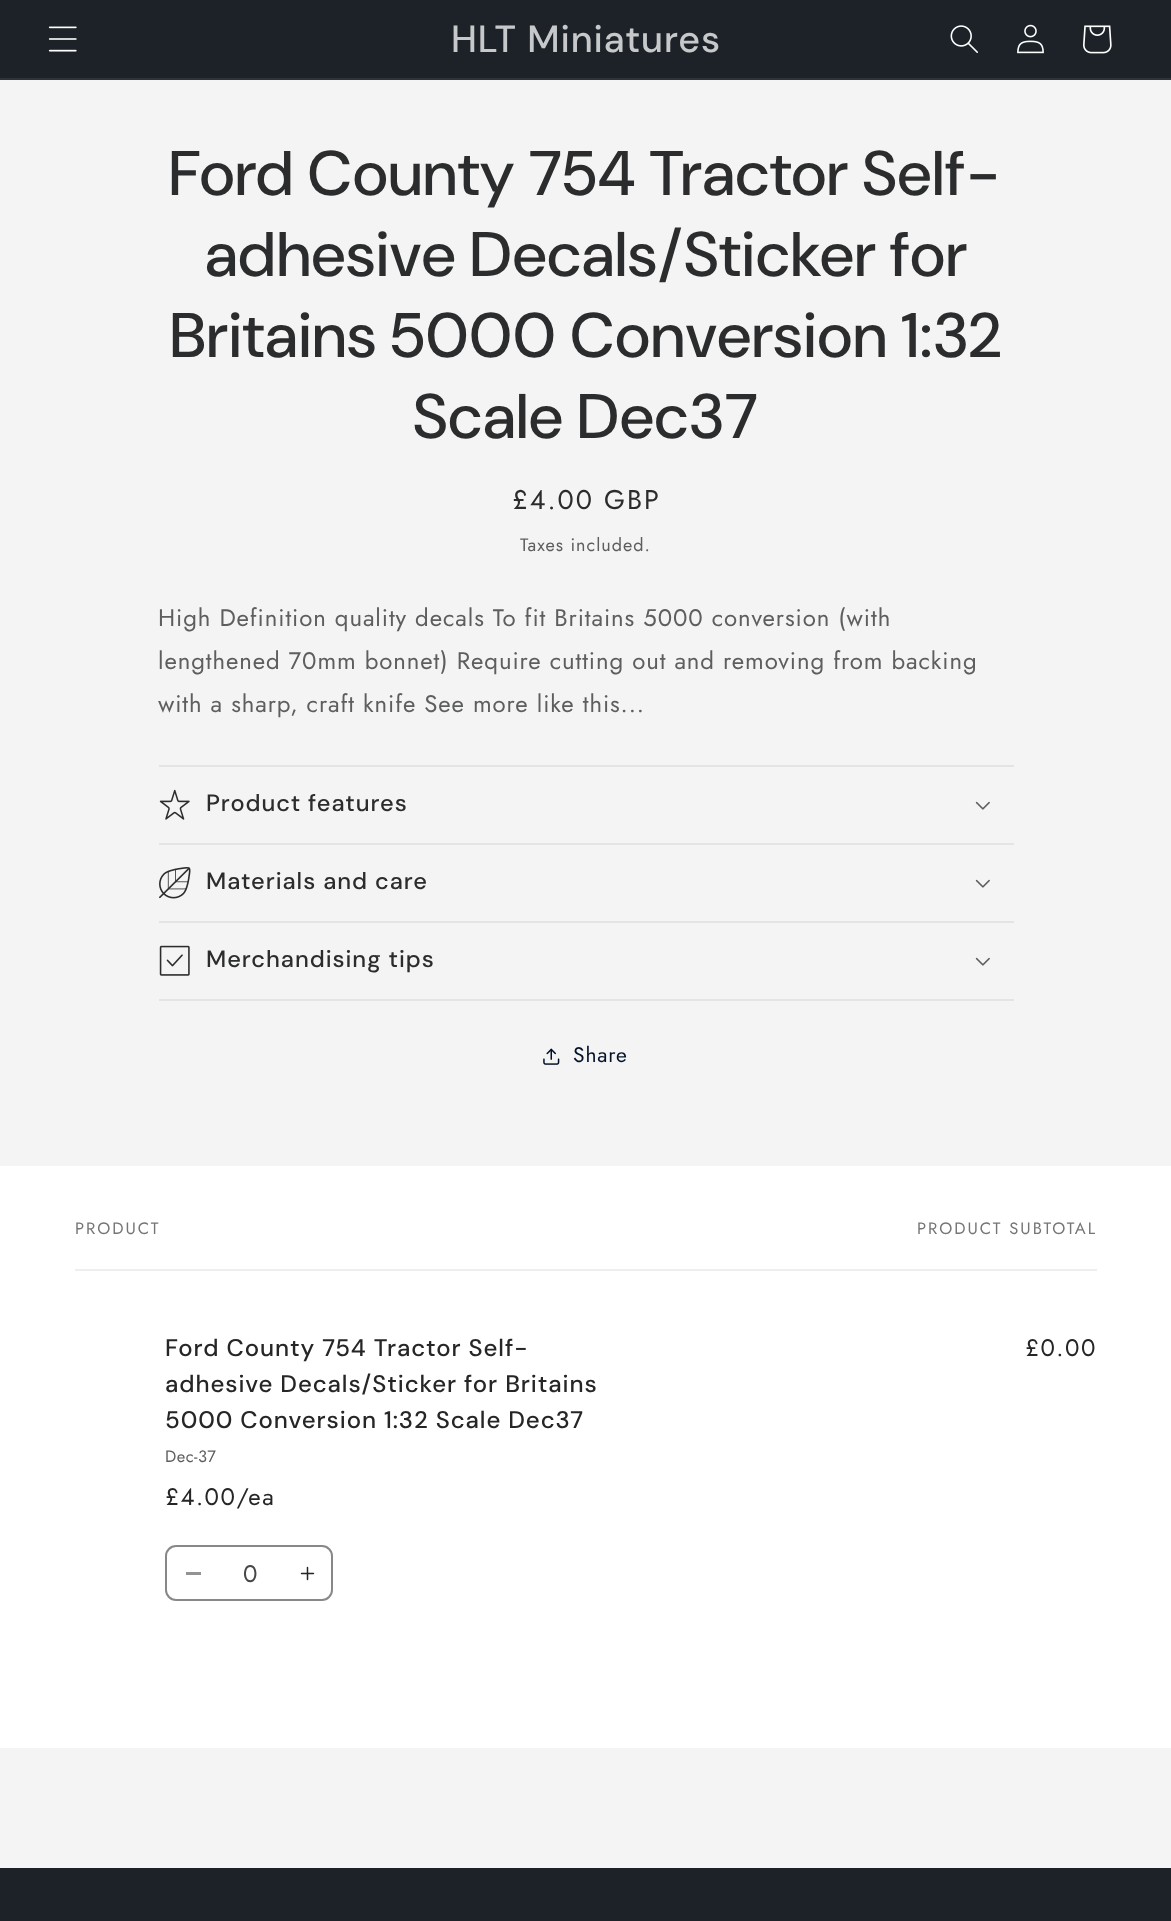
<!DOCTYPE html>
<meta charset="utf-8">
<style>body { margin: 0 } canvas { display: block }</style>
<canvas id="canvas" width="1171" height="1921"></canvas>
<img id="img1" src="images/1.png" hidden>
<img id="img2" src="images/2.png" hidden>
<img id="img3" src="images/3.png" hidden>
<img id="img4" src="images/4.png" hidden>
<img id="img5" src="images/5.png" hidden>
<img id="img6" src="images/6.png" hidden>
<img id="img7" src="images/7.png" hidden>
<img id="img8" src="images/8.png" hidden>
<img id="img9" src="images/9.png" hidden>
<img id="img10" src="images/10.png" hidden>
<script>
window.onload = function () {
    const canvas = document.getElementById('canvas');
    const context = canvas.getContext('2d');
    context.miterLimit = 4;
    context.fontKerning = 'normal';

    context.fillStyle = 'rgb(244, 244, 244)';
    context.fillRect(0, 0, 1171, 1921);
    context.fillStyle = 'rgb(28, 34, 40)';
    context.fillRect(0, 0, 1171, 78);
    context.fillStyle = 'rgb(46, 52, 57)';
    context.fillRect(0, 78, 1171, 2);
    context.drawImage(document.getElementById('img1'), 48, 26, 29, 26);
    context.drawImage(document.getElementById('img2'), 950, 25, 28, 28);
    context.drawImage(document.getElementById('img3'), 1017, 24, 27, 30);
    context.drawImage(document.getElementById('img4'), 1083, 25, 29, 29);
    context.fillStyle = 'rgb(228, 228, 228)';
    context.fillRect(159, 765, 855, 2);
    context.fillRect(159, 843, 855, 2);
    context.drawImage(document.getElementById('img5'), 159, 789, 31, 31);
    context.drawImage(document.getElementById('img6'), 975, 801, 15, 9);
    context.fillRect(159, 921, 855, 2);
    context.drawImage(document.getElementById('img7'), 159, 867, 32, 32);
    context.drawImage(document.getElementById('img6'), 975, 879, 15, 9);
    context.fillRect(159, 999, 855, 2);
    context.drawImage(document.getElementById('img8'), 159, 945, 31, 31);
    context.drawImage(document.getElementById('img6'), 975, 957, 15, 9);
    context.drawImage(document.getElementById('img9'), 543, 1048, 17, 17);
    context.fillStyle = 'rgb(255, 255, 255)';
    context.fillRect(0, 1166, 1171, 582);
    context.fillStyle = 'rgb(238, 238, 238)';
    context.fillRect(75, 1269, 1022, 2);
    context.fillStyle = 'rgb(147, 147, 147)';
    context.fillRect(186, 1572, 15, 3);
    context.drawImage(document.getElementById('img10'), 300, 1566, 15, 15);
    context.beginPath();
    context.roundRect(166, 1546, 166, 54, 10);
    context.strokeStyle = 'rgb(136, 136, 136)';
    context.lineWidth = 2;
    context.stroke();
    context.fillStyle = 'rgb(28, 34, 40)';
    context.fillRect(0, 1868, 1171, 53);
    context.letterSpacing = '0.95px';
    context.font = '500 37.75px "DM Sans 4"';
    context.fillStyle = 'rgb(198, 200, 201)';
    context.fillText('HLT Miniatures', 451, 52);
    context.font = '500 63px DM Sans';
    context.fillStyle = 'rgb(43, 44, 45)';
    context.fillText('Ford County 754 Tractor Self-', 169, 195);
    context.fillText('adhesive Decals/Sticker for', 205, 276);
    context.fillText('Britains 5000 Conversion 1:32', 170, 357);
    context.fillText('Scale Dec37', 413, 438);
    context.letterSpacing = '2px';
    context.font = '27px Jost';
    context.fillText('£4.00 GBP', 512, 509);
    context.letterSpacing = '1px';
    context.font = '18px Jost';
    context.fillStyle = 'rgb(93, 94, 95)';
    context.fillText('Taxes included.', 520, 551);
    context.letterSpacing = '0.9px';
    context.font = '24px Jost';
    context.fillText('High Definition quality decals To fit Britains 5000 conversion (with', 158, 626);
    context.fillText('lengthened 70mm bonnet) Require cutting out and removing from backing', 158, 669);
    context.fillText('with a sharp, craft knife See more like this...', 158, 712);
    context.letterSpacing = '0.95px';
    context.font = '500 23.6px "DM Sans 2"';
    context.fillStyle = 'rgb(43, 44, 45)';
    context.fillText('Product features', 206, 811);
    context.fillText('Materials and care', 206, 889);
    context.fillText('Merchandising tips', 206, 967);
    context.letterSpacing = '0.9px';
    context.font = '21px Jost';
    context.fillStyle = 'rgb(0, 17, 40)';
    context.fillText('Share', 573, 1062);
    context.letterSpacing = '2px';
    context.font = '16.5px Jost';
    context.fillStyle = 'rgb(117, 117, 117)';
    context.fillText('PRODUCT', 75, 1234);
    context.fillText('PRODUCT SUBTOTAL', 917, 1234);
    context.letterSpacing = '0.9px';
    context.font = '500 24px "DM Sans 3"';
    context.fillStyle = 'rgb(38, 38, 38)';
    context.fillText('Ford County 754 Tractor Self-', 165, 1356);
    context.fillText('adhesive Decals/Sticker for Britains', 165, 1392);
    context.fillText('5000 Conversion 1:32 Scale Dec37', 165, 1428);
    context.letterSpacing = '0.5px';
    context.font = '16.5px Jost';
    context.fillStyle = 'rgb(93, 94, 95)';
    context.fillText('Dec-37', 165, 1462);
    context.letterSpacing = '1.5px';
    context.font = '24px Jost';
    context.fillStyle = 'rgb(38, 38, 38)';
    context.fillText('£4.00/ea', 165, 1505);
    context.fillText('£0.00', 1025, 1356);
    context.letterSpacing = '0px';
    context.fillStyle = 'rgb(71, 71, 71)';
    context.fillText('0', 243, 1582);
};
</script>
